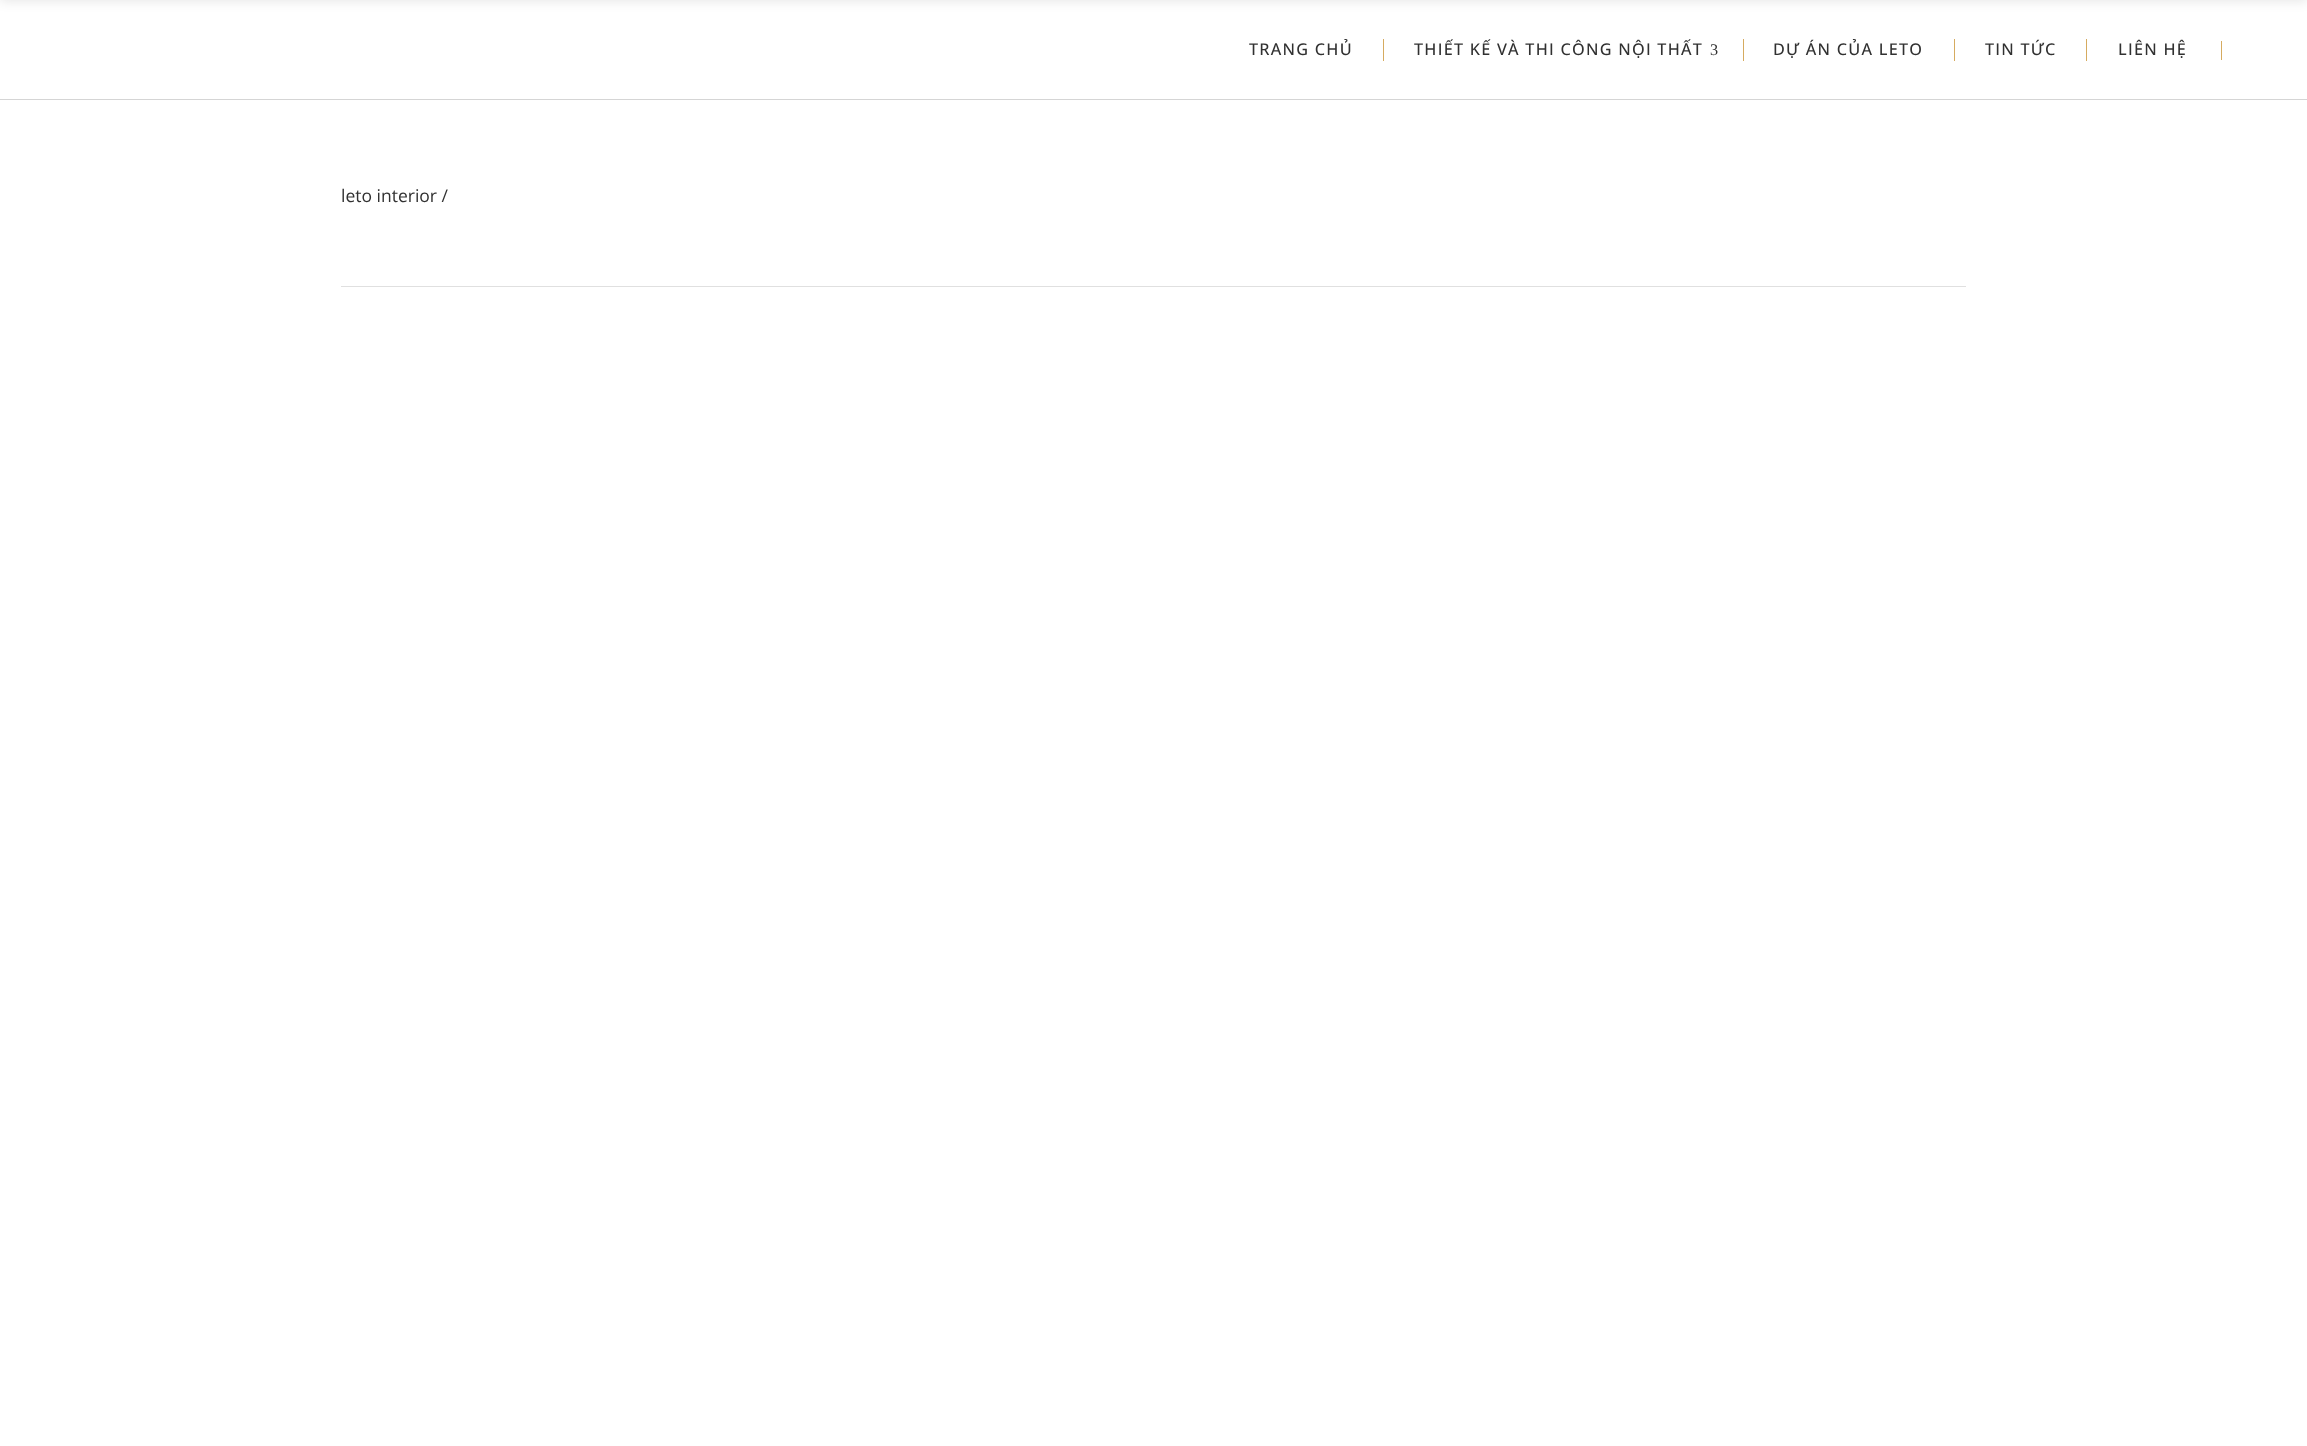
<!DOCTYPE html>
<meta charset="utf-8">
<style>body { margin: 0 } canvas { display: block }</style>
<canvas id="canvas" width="2307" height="1446"></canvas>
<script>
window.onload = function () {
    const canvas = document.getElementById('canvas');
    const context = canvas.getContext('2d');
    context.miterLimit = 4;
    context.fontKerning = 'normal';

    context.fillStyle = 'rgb(255, 255, 255)';
    context.fillRect(0, 0, 2307, 1446);
    context.fillStyle = 'rgba(0, 0, 0, 0.1)';
    context.filter = 'blur(6px)';
    context.beginPath();
    context.rect(0, -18, 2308, 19);
    context.fill();
    context.filter = 'none';
    context.fillStyle = 'rgb(213, 213, 213)';
    context.fillRect(0, 99, 2307, 1);
    context.fillStyle = 'rgb(214, 171, 96)';
    context.fillRect(1383, 39, 1, 22);
    context.fillRect(1743, 39, 1, 22);
    context.fillRect(1954, 39, 1, 22);
    context.fillRect(2086, 39, 1, 22);
    context.fillRect(2221, 41, 1, 19);
    context.fillStyle = 'rgb(224, 224, 224)';
    context.fillRect(341, 286, 1625, 1);
    context.letterSpacing = '1.25px';
    context.font = '500 16.25px Open Sans';
    context.fillStyle = 'rgb(49, 49, 49)';
    context.fillText('TRANG CHỦ', 1249, 55);
    context.fillText('THIẾT KẾ VÀ THI CÔNG NỘI THẤT', 1414, 55);
    context.font = '16.25px Liberation Serif';
    context.fillText('3', 1710, 55);
    context.font = '500 16.25px Open Sans';
    context.fillText('DỰ ÁN CỦA LETO', 1773, 55);
    context.fillText('TIN TỨC', 1985, 55);
    context.fillText('LIÊN HỆ', 2118, 55);
    context.letterSpacing = '0px';
    context.font = '17.5px Open Sans';
    context.fillText('leto interior /', 341, 202);
};
</script>
